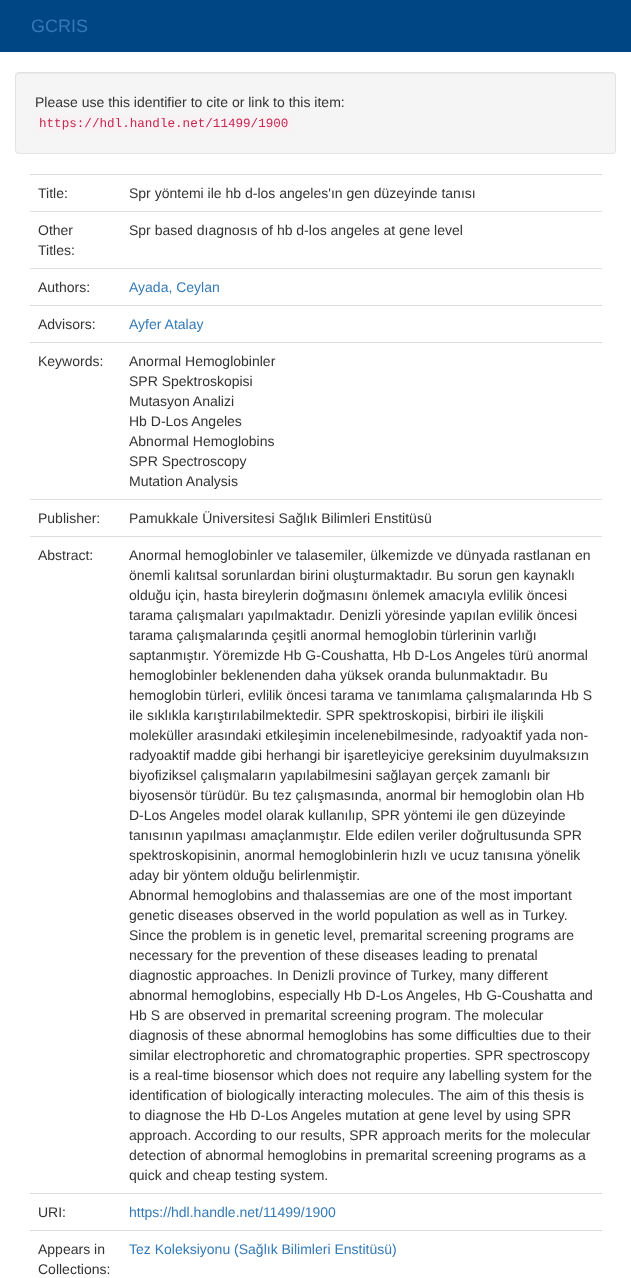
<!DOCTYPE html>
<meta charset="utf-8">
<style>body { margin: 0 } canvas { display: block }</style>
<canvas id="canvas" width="631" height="1278"></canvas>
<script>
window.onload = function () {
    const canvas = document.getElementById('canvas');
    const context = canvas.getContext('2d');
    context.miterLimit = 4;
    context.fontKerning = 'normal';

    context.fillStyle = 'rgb(255, 255, 255)';
    context.fillRect(0, 0, 631, 1278);
    context.fillStyle = 'rgb(0, 70, 132)';
    context.fillRect(0, 0, 631, 52);
    context.fillStyle = 'rgb(245, 245, 245)';
    context.beginPath();
    context.roundRect(15, 72, 601, 82, 4);
    context.fill();
    context.fillStyle = 'rgb(233, 233, 233)';
    context.beginPath();
    context.moveTo(19, 74);
    context.lineTo(612, 74);
    context.bezierCurveTo(614, 74, 615, 75, 615, 77);
    context.lineTo(615, 76);
    context.bezierCurveTo(615, 74, 614, 73, 612, 73);
    context.lineTo(19, 73);
    context.bezierCurveTo(17, 73, 16, 74, 16, 76);
    context.lineTo(16, 77);
    context.bezierCurveTo(16, 75, 17, 74, 19, 74);
    context.closePath();
    context.fill();
    context.beginPath();
    context.roundRect(15.5, 72.5, 600, 81, 3.5);
    context.strokeStyle = 'rgb(227, 227, 227)';
    context.stroke();
    context.fillStyle = 'rgb(249, 242, 244)';
    context.beginPath();
    context.roundRect(35, 115, 257, 18, 4);
    context.fill();
    context.fillStyle = 'rgb(221, 221, 221)';
    context.fillRect(30, 174, 572, 1);
    context.fillRect(30, 211, 572, 1);
    context.fillRect(30, 268, 572, 1);
    context.fillRect(30, 305, 572, 1);
    context.fillRect(30, 342, 572, 1);
    context.fillRect(30, 499, 572, 1);
    context.fillRect(30, 536, 572, 1);
    context.fillRect(30, 1193, 572, 1);
    context.fillRect(30, 1230, 572, 1);
    context.font = '18px Liberation Sans';
    context.fillStyle = 'rgb(51, 122, 183)';
    context.fillText('GCRIS', 31, 32);
    context.font = '14px Liberation Sans';
    context.fillStyle = 'rgb(51, 51, 51)';
    context.fillText('Please use this identifier to cite or link to this item:', 35, 107);
    context.font = '12.6px Liberation Mono';
    context.fillStyle = 'rgb(199, 37, 78)';
    context.fillText('https://hdl.handle.net/11499/1900', 39, 127);
    context.font = '14px Liberation Sans';
    context.fillStyle = 'rgb(51, 51, 51)';
    context.fillText('Title:', 38, 198);
    context.fillText('Spr yöntemi ile hb d-los angeles\'ın gen düzeyinde tanısı', 129, 198);
    context.fillText('Other', 38, 235);
    context.fillText('Titles:', 38, 255);
    context.fillText('Spr based dıagnosıs of hb d-los angeles at gene level', 129, 235);
    context.fillText('Authors:', 38, 292);
    context.fillStyle = 'rgb(51, 122, 183)';
    context.fillText('Ayada, Ceylan', 129, 292);
    context.fillStyle = 'rgb(51, 51, 51)';
    context.fillText('Advisors:', 38, 329);
    context.fillStyle = 'rgb(51, 122, 183)';
    context.fillText('Ayfer Atalay', 129, 329);
    context.fillStyle = 'rgb(51, 51, 51)';
    context.fillText('Keywords:', 38, 366);
    context.fillText('Anormal Hemoglobinler', 129, 366);
    context.fillText('SPR Spektroskopisi', 129, 386);
    context.fillText('Mutasyon Analizi', 129, 406);
    context.fillText('Hb D-Los Angeles', 129, 426);
    context.fillText('Abnormal Hemoglobins', 129, 446);
    context.fillText('SPR Spectroscopy', 129, 466);
    context.fillText('Mutation Analysis', 129, 486);
    context.fillText('Publisher:', 38, 523);
    context.fillText('Pamukkale Üniversitesi Sağlık Bilimleri Enstitüsü', 129, 523);
    context.fillText('Abstract:', 38, 560);
    context.fillText('Anormal hemoglobinler ve talasemiler, ülkemizde ve dünyada rastlanan en', 129, 560);
    context.fillText('önemli kalıtsal sorunlardan birini oluşturmaktadır. Bu sorun gen kaynaklı', 129, 580);
    context.fillText('olduğu için, hasta bireylerin doğmasını önlemek amacıyla evlilik öncesi', 129, 600);
    context.fillText('tarama çalışmaları yapılmaktadır. Denizli yöresinde yapılan evlilik öncesi', 129, 620);
    context.fillText('tarama çalışmalarında çeşitli anormal hemoglobin türlerinin varlığı', 129, 640);
    context.fillText('saptanmıştır. Yöremizde Hb G-Coushatta, Hb D-Los Angeles türü anormal', 129, 660);
    context.fillText('hemoglobinler beklenenden daha yüksek oranda bulunmaktadır. Bu', 129, 680);
    context.fillText('hemoglobin türleri, evlilik öncesi tarama ve tanımlama çalışmalarında Hb S', 129, 700);
    context.fillText('ile sıklıkla karıştırılabilmektedir. SPR spektroskopisi, birbiri ile ilişkili', 129, 720);
    context.fillText('moleküller arasındaki etkileşimin incelenebilmesinde, radyoaktif yada non-', 129, 740);
    context.fillText('radyoaktif madde gibi herhangi bir işaretleyiciye gereksinim duyulmaksızın', 129, 760);
    context.fillText('biyofiziksel çalışmaların yapılabilmesini sağlayan gerçek zamanlı bir', 129, 780);
    context.fillText('biyosensör türüdür. Bu tez çalışmasında, anormal bir hemoglobin olan Hb', 129, 800);
    context.fillText('D-Los Angeles model olarak kullanılıp, SPR yöntemi ile gen düzeyinde', 129, 820);
    context.fillText('tanısının yapılması amaçlanmıştır. Elde edilen veriler doğrultusunda SPR', 129, 840);
    context.fillText('spektroskopisinin, anormal hemoglobinlerin hızlı ve ucuz tanısına yönelik', 129, 860);
    context.fillText('aday bir yöntem olduğu belirlenmiştir.', 129, 880);
    context.fillText('Abnormal hemoglobins and thalassemias are one of the most important', 129, 900);
    context.fillText('genetic diseases observed in the world population as well as in Turkey.', 129, 920);
    context.fillText('Since the problem is in genetic level, premarital screening programs are', 129, 940);
    context.fillText('necessary for the prevention of these diseases leading to prenatal', 129, 960);
    context.fillText('diagnostic approaches. In Denizli province of Turkey, many different', 129, 980);
    context.fillText('abnormal hemoglobins, especially Hb D-Los Angeles, Hb G-Coushatta and', 129, 1000);
    context.fillText('Hb S are observed in premarital screening program. The molecular', 129, 1020);
    context.fillText('diagnosis of these abnormal hemoglobins has some difficulties due to their', 129, 1040);
    context.fillText('similar electrophoretic and chromatographic properties. SPR spectroscopy', 129, 1060);
    context.fillText('is a real-time biosensor which does not require any labelling system for the', 129, 1080);
    context.fillText('identification of biologically interacting molecules. The aim of this thesis is', 129, 1100);
    context.fillText('to diagnose the Hb D-Los Angeles mutation at gene level by using SPR', 129, 1120);
    context.fillText('approach. According to our results, SPR approach merits for the molecular', 129, 1140);
    context.fillText('detection of abnormal hemoglobins in premarital screening programs as a', 129, 1160);
    context.fillText('quick and cheap testing system.', 129, 1180);
    context.fillText('URI:', 38, 1217);
    context.fillStyle = 'rgb(51, 122, 183)';
    context.fillText('https://hdl.handle.net/11499/1900', 129, 1217);
    context.fillStyle = 'rgb(51, 51, 51)';
    context.fillText('Appears in', 38, 1254);
    context.fillText('Collections:', 38, 1274);
    context.fillStyle = 'rgb(51, 122, 183)';
    context.fillText('Tez Koleksiyonu (Sağlık Bilimleri Enstitüsü)', 129, 1254);
};
</script>
